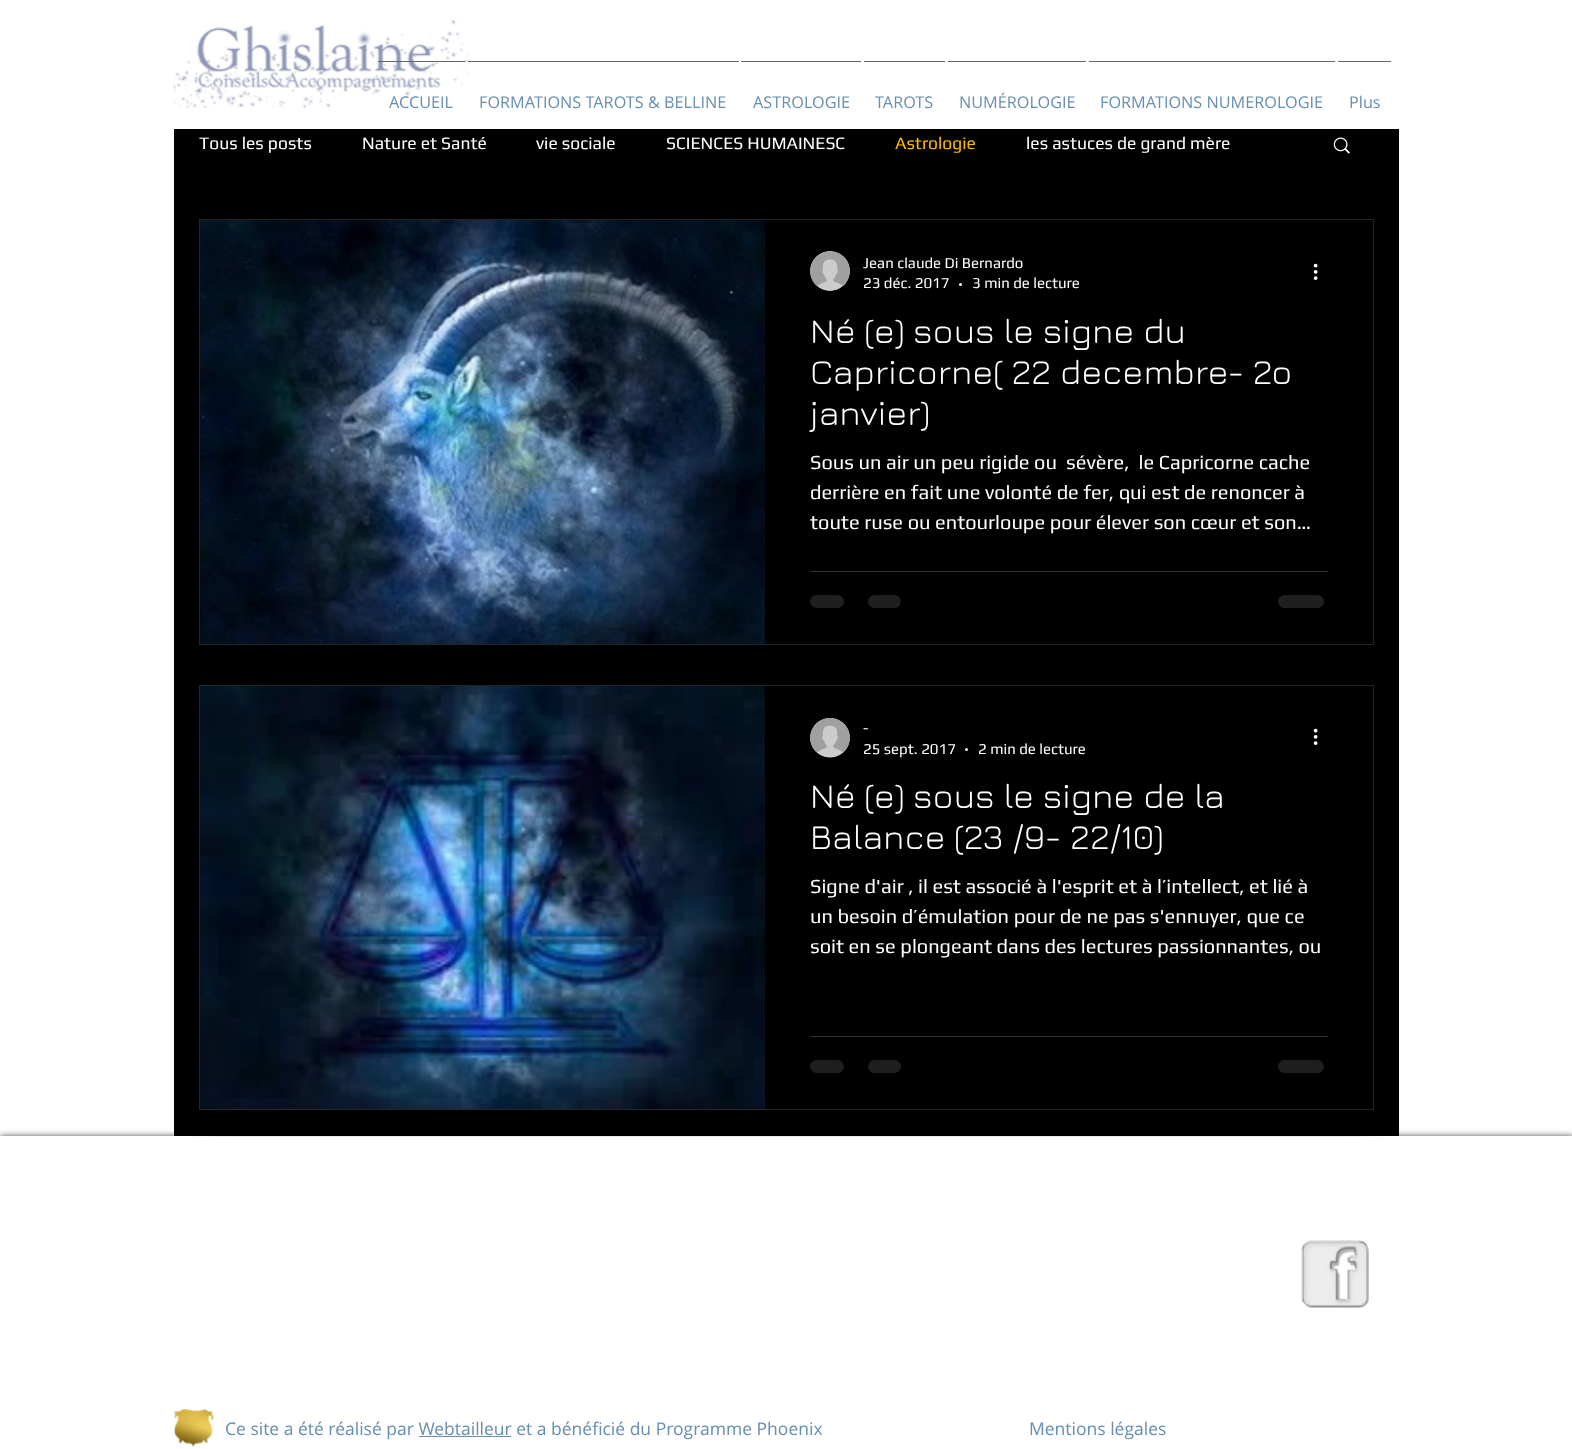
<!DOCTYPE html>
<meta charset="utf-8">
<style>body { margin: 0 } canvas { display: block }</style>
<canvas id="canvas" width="1572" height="1449"></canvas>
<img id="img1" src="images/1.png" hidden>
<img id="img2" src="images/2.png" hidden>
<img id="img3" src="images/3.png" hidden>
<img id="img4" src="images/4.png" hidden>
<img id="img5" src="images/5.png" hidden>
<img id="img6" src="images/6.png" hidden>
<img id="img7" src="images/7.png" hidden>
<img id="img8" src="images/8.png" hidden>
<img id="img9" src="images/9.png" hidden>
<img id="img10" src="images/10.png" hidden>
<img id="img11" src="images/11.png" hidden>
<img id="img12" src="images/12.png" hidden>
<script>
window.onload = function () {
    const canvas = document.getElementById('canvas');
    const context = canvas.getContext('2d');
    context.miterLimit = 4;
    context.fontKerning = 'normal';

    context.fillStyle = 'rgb(255, 255, 255)';
    context.fillRect(0, 0, 1572, 1449);
    context.drawImage(document.getElementById('img1'), 173, 19, 296, 89);
    context.fillStyle = 'rgb(102, 102, 102)';
    context.fillRect(378, 61, 87, 1);
    context.fillRect(468, 61, 271, 1);
    context.fillRect(741, 61, 120, 1);
    context.fillRect(864, 61, 81, 1);
    context.fillRect(948, 61, 138, 1);
    context.fillRect(1089, 61, 246, 1);
    context.fillRect(1338, 61, 53, 1);
    context.fillStyle = 'rgb(0, 0, 0)';
    context.fillRect(174, 129, 1225, 1007);
    context.drawImage(document.getElementById('img2'), 1333, 137, 17, 17);
    context.strokeStyle = 'rgb(38, 38, 38)';
    context.strokeRect(199.5, 219.5, 1174, 425);
    context.drawImage(document.getElementById('img3'), 200, 220, 565, 424);
    context.drawImage(document.getElementById('img4'), 810, 251, 40, 40);
    context.fillStyle = 'rgb(255, 255, 255)';
    context.beginPath();
    context.arc(960.5, 284.5, 1.5, 0, 2 * Math.PI);
    context.fill();
    context.drawImage(document.getElementById('img5'), 1313, 263, 5, 17);
    context.fillStyle = 'rgb(51, 51, 51)';
    context.fillRect(810, 571, 518, 1);
    context.fillStyle = 'rgb(31, 31, 31)';
    context.beginPath();
    context.roundRect(810, 595, 34, 13, 6.5);
    context.fill();
    context.beginPath();
    context.roundRect(868, 595, 33, 13, 6.5);
    context.fill();
    context.beginPath();
    context.roundRect(1278, 595, 46, 13, 6.5);
    context.fill();
    context.strokeRect(199.5, 685.5, 1174, 424);
    context.drawImage(document.getElementById('img6'), 200, 686, 565, 423);
    context.drawImage(document.getElementById('img7'), 810, 718, 40, 40);
    context.fillStyle = 'rgb(255, 255, 255)';
    context.beginPath();
    context.arc(966.5, 749.5, 1.5, 0, 2 * Math.PI);
    context.fill();
    context.drawImage(document.getElementById('img5'), 1313, 728, 5, 17);
    context.fillStyle = 'rgb(51, 51, 51)';
    context.fillRect(810, 1036, 518, 1);
    context.fillStyle = 'rgb(31, 31, 31)';
    context.beginPath();
    context.roundRect(810, 1060, 34, 13, 6.5);
    context.fill();
    context.beginPath();
    context.roundRect(868, 1060, 33, 13, 6.5);
    context.fill();
    context.beginPath();
    context.roundRect(1278, 1060, 46, 13, 6.5);
    context.fill();
    context.fillStyle = 'rgba(0, 0, 0, 0.7)';
    context.filter = 'blur(3px)';
    context.beginPath();
    context.rect(0, 1136, 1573, 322);
    context.fill();
    context.filter = 'none';
    context.fillStyle = 'rgb(255, 255, 255)';
    context.fillRect(0, 1136, 1572, 313);
    context.drawImage(document.getElementById('img8'), 192, 1136, 107, 1);
    context.drawImage(document.getElementById('img9'), 298, 1136, 976, 1);
    context.drawImage(document.getElementById('img10'), 1274, 1136, 107, 1);
    context.drawImage(document.getElementById('img11'), 1301, 1240, 68, 68);
    context.drawImage(document.getElementById('img12'), 174, 1408, 40, 39);
    context.fillStyle = 'rgb(102, 142, 176)';
    context.fillRect(419, 1436, 92, 1);
    context.font = '16.25px Open Sans';
    context.fillText('ACCUEIL', 389, 108);
    context.fillText('FORMATIONS TAROTS & BELLINE', 479, 108);
    context.fillText('ASTROLOGIE', 753, 108);
    context.fillText('TAROTS', 875, 108);
    context.fillText('NUMÉROLOGIE', 959, 108);
    context.fillText('FORMATIONS NUMEROLOGIE', 1100, 108);
    context.fillText('Plus', 1349, 108);
    context.font = '17.5px Play';
    context.fillStyle = 'rgb(255, 255, 255)';
    context.fillText('Tous les posts', 199, 149);
    context.fillText('Nature et Santé', 362, 149);
    context.fillText('vie sociale', 536, 149);
    context.fillText('SCIENCES HUMAINESC', 666, 149);
    context.fillStyle = 'rgb(255, 187, 0)';
    context.fillText('Astrologie', 895, 149);
    context.fillStyle = 'rgb(255, 255, 255)';
    context.fillText('les astuces de grand mère', 1026, 149);
    context.font = '15px Play';
    context.fillText('Jean claude Di Bernardo', 863, 268);
    context.fillText('23 déc. 2017', 863, 288);
    context.fillText('3 min de lecture', 972, 288);
    context.font = '35px Jura';
    context.fillText('Né (e) sous le signe du', 810, 343);
    context.fillText('Capricorne( 22 decembre- 2o', 810, 384);
    context.fillText('janvier)', 810, 425);
    context.font = '20px Play';
    context.fillText('Sous un air un peu rigide ou  sévère,  le Capricorne cache', 810, 469);
    context.fillText('derrière en fait une volonté de fer, qui est de renoncer à', 810, 499);
    context.fillText('toute ruse ou entourloupe pour élever son cœur et son…', 810, 529);
    context.font = '15px Play';
    context.fillText('-', 863, 733);
    context.fillText('25 sept. 2017', 863, 754);
    context.fillText('2 min de lecture', 978, 754);
    context.font = '35px Jura';
    context.fillText('Né (e) sous le signe de la', 810, 808);
    context.fillText('Balance (23 /9- 22/10)', 810, 849);
    context.font = '20px Play';
    context.fillText('Signe d\'air , il est associé à l\'esprit et à l’intellect, et lié à', 810, 893);
    context.fillText('un besoin d’émulation pour de ne pas s\'ennuyer, que ce', 810, 923);
    context.fillText('soit en se plongeant dans des lectures passionnantes, ou', 810, 953);
    context.font = '17.5px Open Sans';
    context.fillStyle = 'rgb(102, 142, 176)';
    context.fillText('Ce site a été réalisé par Webtailleur et a bénéficié du Programme Phoenix', 225, 1435);
    context.fillText('Mentions légales', 1029, 1435);
};
</script>
